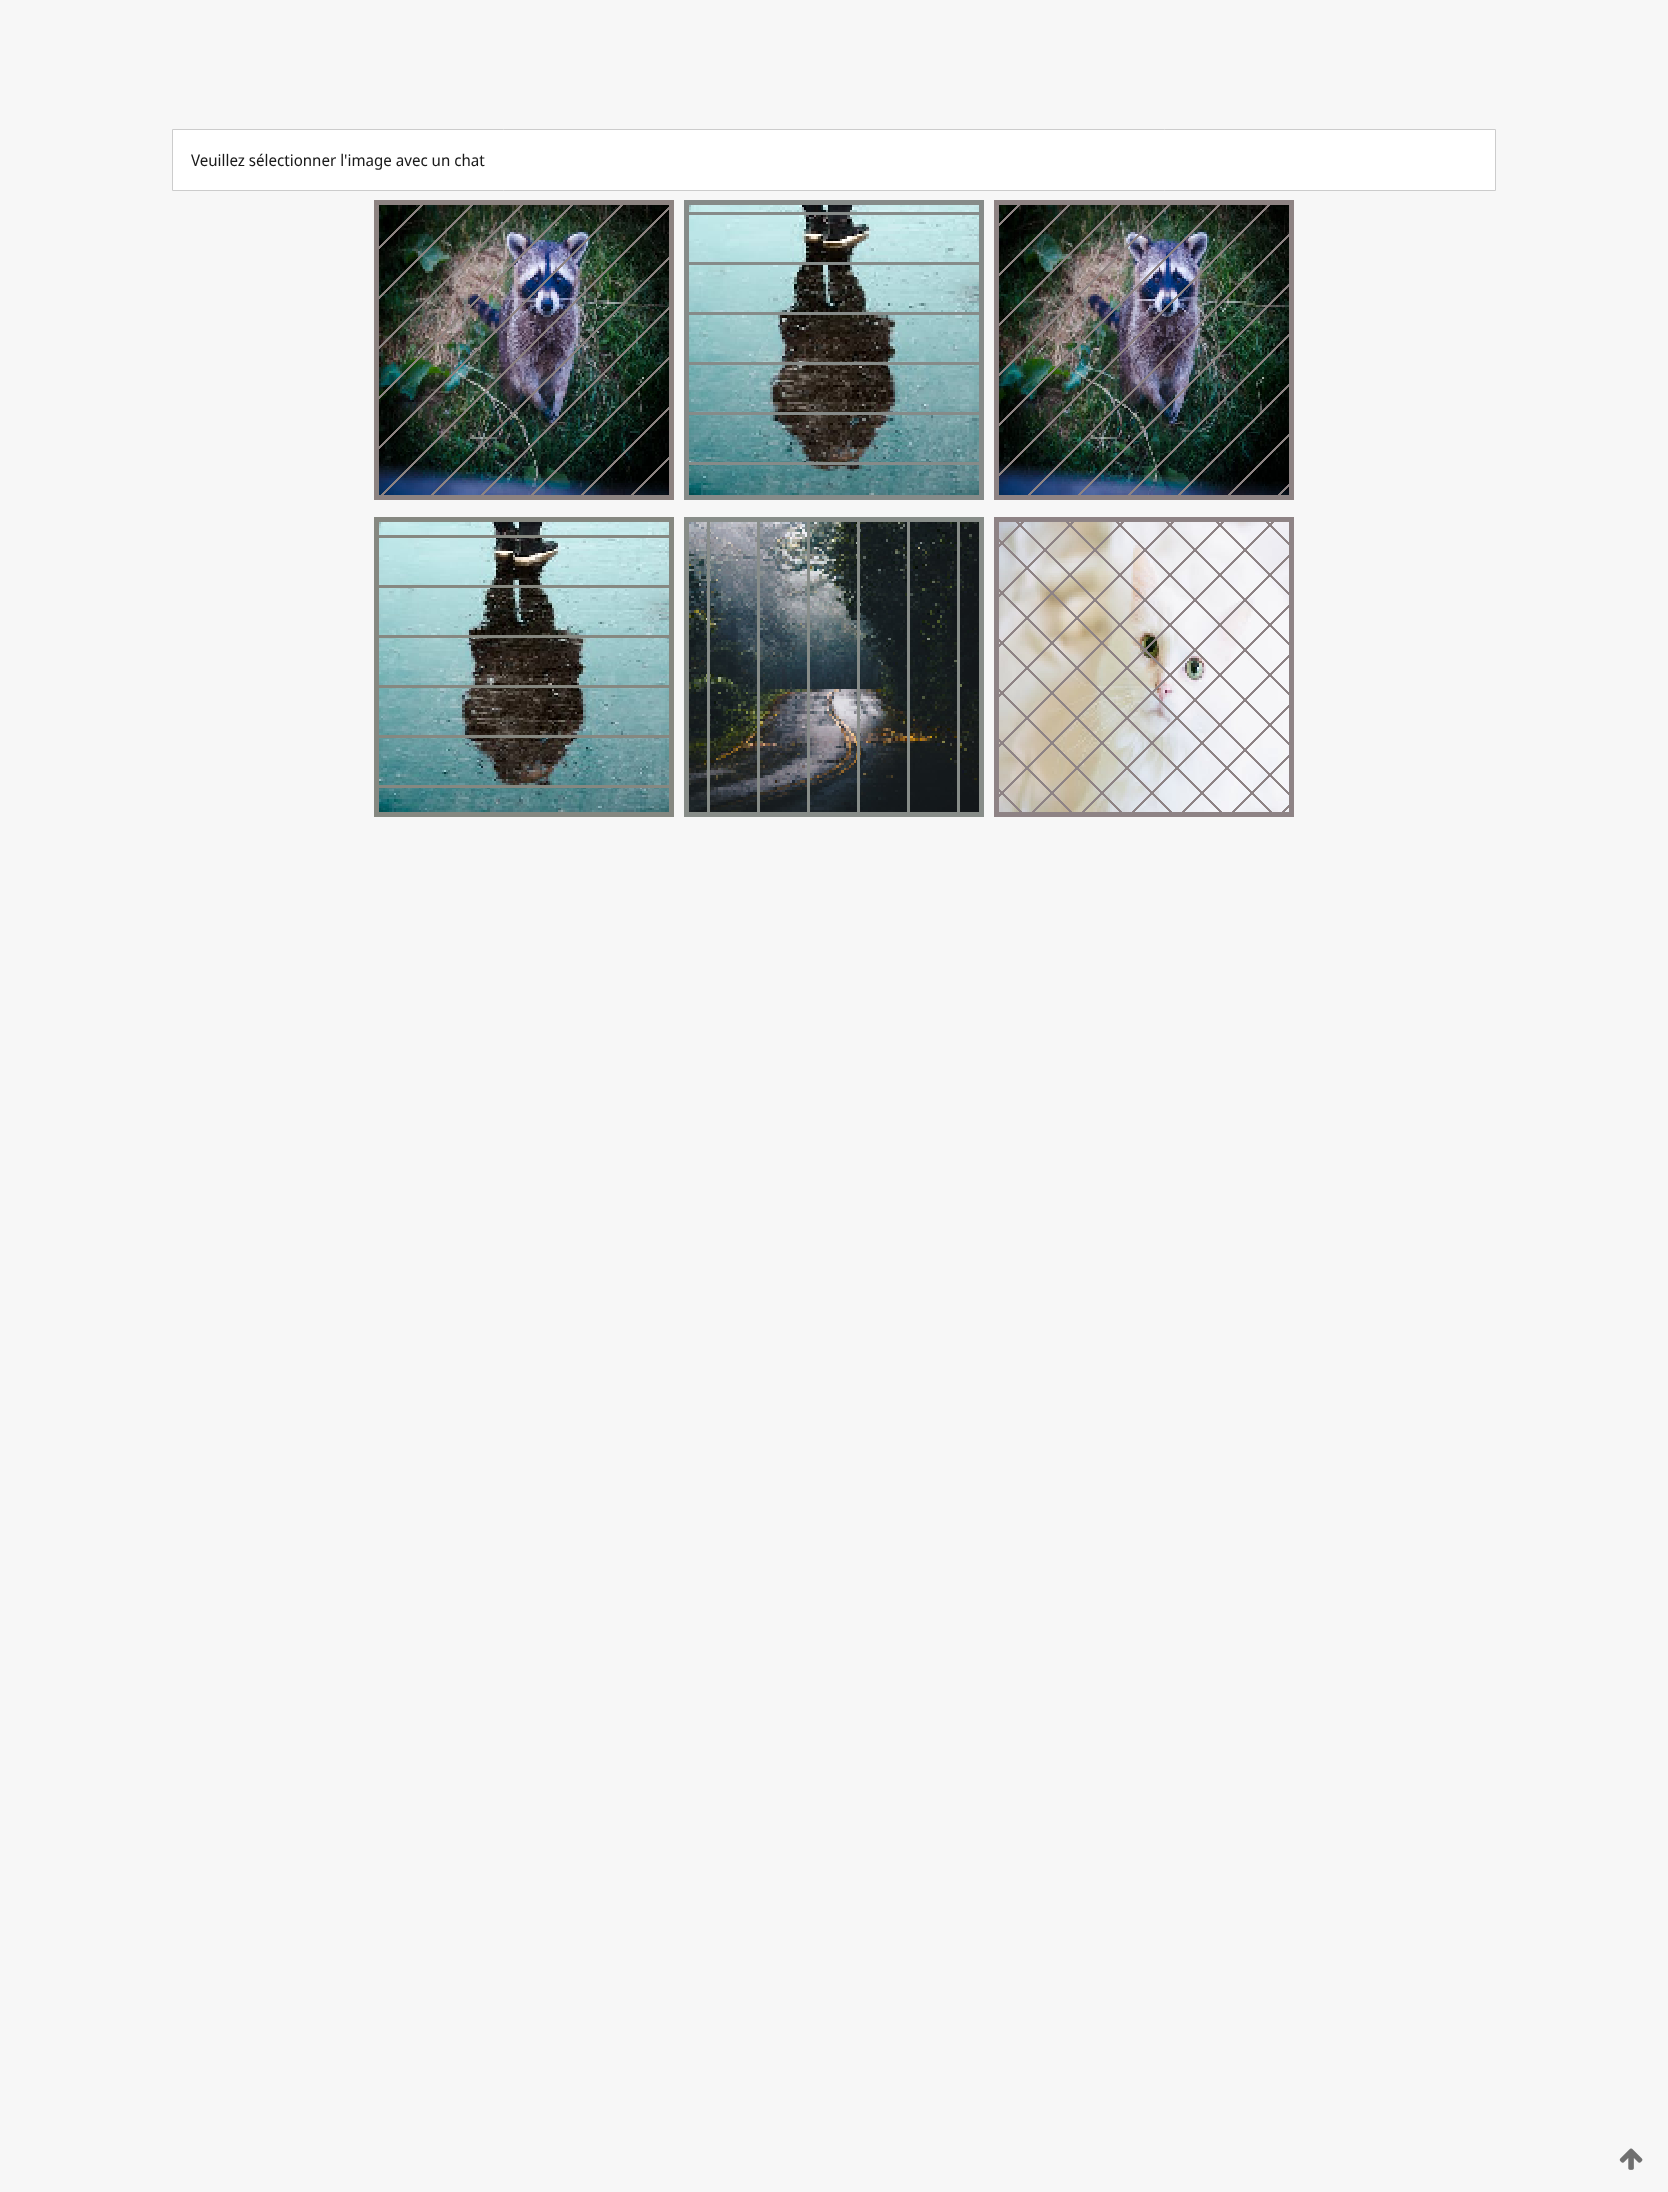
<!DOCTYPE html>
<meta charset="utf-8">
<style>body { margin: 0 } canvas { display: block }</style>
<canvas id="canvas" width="1668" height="2192"></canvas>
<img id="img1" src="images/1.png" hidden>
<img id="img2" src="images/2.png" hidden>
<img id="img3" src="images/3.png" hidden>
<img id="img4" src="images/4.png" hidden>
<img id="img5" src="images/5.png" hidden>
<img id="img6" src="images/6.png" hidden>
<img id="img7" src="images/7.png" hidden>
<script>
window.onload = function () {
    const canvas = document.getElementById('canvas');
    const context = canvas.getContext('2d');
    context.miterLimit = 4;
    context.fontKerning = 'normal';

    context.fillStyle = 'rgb(247, 247, 247)';
    context.fillRect(0, 0, 1668, 2192);
    context.fillStyle = 'rgb(255, 255, 255)';
    context.beginPath();
    context.rect(172.5, 129.5, 1323, 61);
    context.fill();
    context.strokeStyle = 'rgb(204, 204, 204)';
    context.stroke();
    context.drawImage(document.getElementById('img1'), 374, 200, 300, 300);
    context.drawImage(document.getElementById('img2'), 684, 200, 300, 300);
    context.drawImage(document.getElementById('img3'), 994, 200, 300, 300);
    context.drawImage(document.getElementById('img4'), 374, 517, 300, 300);
    context.drawImage(document.getElementById('img5'), 684, 517, 300, 300);
    context.drawImage(document.getElementById('img6'), 994, 517, 300, 300);
    context.drawImage(document.getElementById('img7'), 1619, 2148, 24, 22);
    context.font = '16px Noto Sans Display';
    context.fillStyle = 'rgb(26, 26, 26)';
    context.fillText('Veuillez sélectionner l\'image avec un chat', 191, 166);
};
</script>
